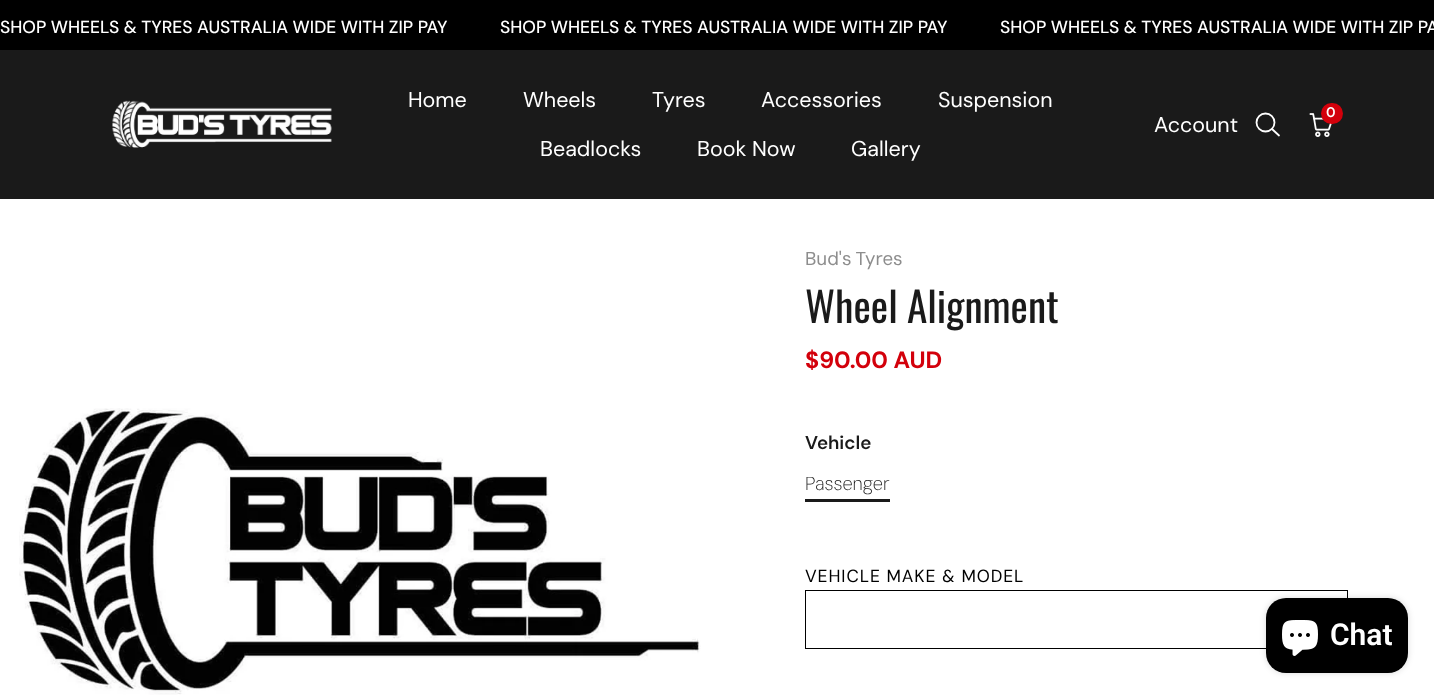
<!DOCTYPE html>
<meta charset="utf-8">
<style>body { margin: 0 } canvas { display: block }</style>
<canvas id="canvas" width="1434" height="698"></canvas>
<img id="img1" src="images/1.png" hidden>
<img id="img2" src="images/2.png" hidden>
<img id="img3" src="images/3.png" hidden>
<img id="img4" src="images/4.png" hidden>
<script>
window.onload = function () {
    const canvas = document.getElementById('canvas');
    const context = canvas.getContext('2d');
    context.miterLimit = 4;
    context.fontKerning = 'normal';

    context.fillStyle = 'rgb(255, 255, 255)';
    context.fillRect(0, 0, 1434, 698);
    context.fillStyle = 'rgb(0, 0, 0)';
    context.fillRect(0, 0, 1434, 50);
    context.fillStyle = 'rgb(26, 26, 26)';
    context.fillRect(0, 50, 1434, 149);
    context.drawImage(document.getElementById('img1'), 112, 100, 220, 48);
    context.beginPath();
    context.arc(1265.5, 122.5, 9, 0, 2 * Math.PI);
    context.strokeStyle = 'rgb(255, 255, 255)';
    context.lineWidth = 1.8;
    context.stroke();
    context.beginPath();
    context.moveTo(1272, 129);
    context.lineTo(1279, 135.5);
    context.lineCap = 'round';
    context.lineJoin = 'round';
    context.stroke();
    context.drawImage(document.getElementById('img2'), 1309, 113, 23, 24);
    context.fillStyle = 'rgb(211, 0, 11)';
    context.beginPath();
    context.roundRect(1321, 103, 22, 21, 10.5);
    context.fill();
    context.drawImage(document.getElementById('img3'), 19, 408, 682, 287);
    context.fillStyle = 'rgb(26, 26, 26)';
    context.fillRect(805, 499, 85, 3);
    context.strokeStyle = 'rgb(0, 0, 0)';
    context.lineWidth = 1;
    context.lineJoin = 'miter';
    context.strokeRect(805.5, 590.5, 542, 58);
    context.fillStyle = 'rgba(0, 0, 0, 0.15)';
    context.filter = 'blur(3px)';
    context.beginPath();
    context.roundRect(1266, 598, 142, 75, 20);
    context.fill();
    context.filter = 'none';
    context.fillStyle = 'rgb(0, 0, 0)';
    context.beginPath();
    context.roundRect(1266, 598, 142, 75, 20);
    context.fill();
    context.drawImage(document.getElementById('img4'), 1282, 620, 36, 36);
    context.font = '500 17.5px DM Sans';
    context.fillStyle = 'rgb(255, 255, 255)';
    context.fillText('SHOP WHEELS & TYRES AUSTRALIA WIDE WITH ZIP PAY', 0, 33);
    context.fillText('SHOP WHEELS & TYRES AUSTRALIA WIDE WITH ZIP PAY', 500, 33);
    context.fillText('SHOP WHEELS & TYRES AUSTRALIA WIDE WITH ZIP PA', 1000, 33);
    context.font = '21.5px "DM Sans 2"';
    context.fillText('Home', 408, 107);
    context.fillText('Wheels', 523, 107);
    context.fillText('Tyres', 652, 107);
    context.fillText('Accessories', 761, 107);
    context.fillText('Suspension', 938, 107);
    context.fillText('Beadlocks', 540, 156);
    context.fillText('Book Now', 697, 156);
    context.fillText('Gallery', 851, 156);
    context.fillText('Account', 1154, 132);
    context.font = '600 14px "DM Sans 2"';
    context.fillText('0', 1326, 117);
    context.wordSpacing = '-1px';
    context.font = '18.75px DM Sans';
    context.fillStyle = 'rgb(141, 141, 141)';
    context.fillText('Bud\'s Tyres', 805, 265);
    context.wordSpacing = '0px';
    context.font = '41.25px Oswald';
    context.fillStyle = 'rgb(26, 26, 26)';
    context.fillText('Wheel Alignment', 805, 323);
    context.font = 'bold 23.5px DM Sans';
    context.fillStyle = 'rgb(211, 0, 11)';
    context.fillText('$90.00 AUD', 805, 368);
    context.font = '600 18.75px DM Sans';
    context.fillStyle = 'rgb(26, 26, 26)';
    context.fillText('Vehicle', 805, 449);
    context.font = '200 18.75px DM Sans';
    context.fillText('Passenger', 805, 490);
    context.letterSpacing = '0.9px';
    context.font = '17.5px DM Sans';
    context.fillStyle = 'rgb(0, 0, 0)';
    context.fillText('VEHICLE MAKE & MODEL', 805, 582);
    context.letterSpacing = '0px';
    context.font = '600 30px Roboto';
    context.fillStyle = 'rgb(255, 255, 255)';
    context.fillText('Chat', 1330, 645);
};
</script>
